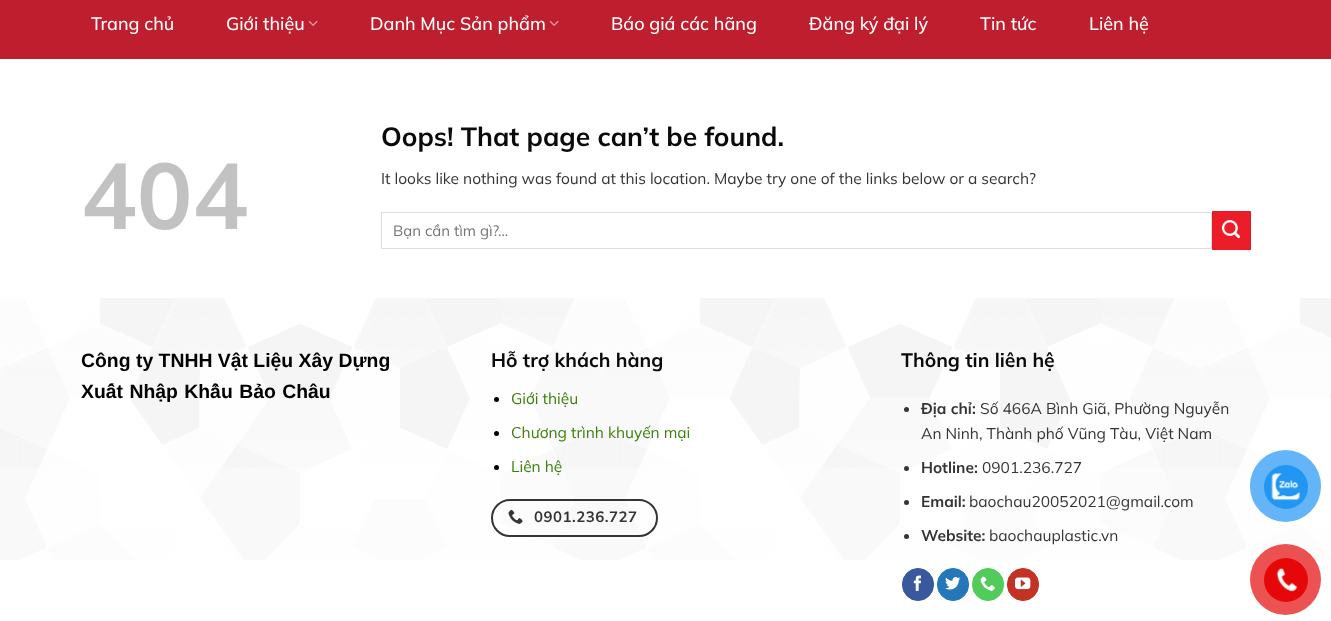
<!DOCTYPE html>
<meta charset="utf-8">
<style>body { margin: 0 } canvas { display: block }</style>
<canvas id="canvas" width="1331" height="621"></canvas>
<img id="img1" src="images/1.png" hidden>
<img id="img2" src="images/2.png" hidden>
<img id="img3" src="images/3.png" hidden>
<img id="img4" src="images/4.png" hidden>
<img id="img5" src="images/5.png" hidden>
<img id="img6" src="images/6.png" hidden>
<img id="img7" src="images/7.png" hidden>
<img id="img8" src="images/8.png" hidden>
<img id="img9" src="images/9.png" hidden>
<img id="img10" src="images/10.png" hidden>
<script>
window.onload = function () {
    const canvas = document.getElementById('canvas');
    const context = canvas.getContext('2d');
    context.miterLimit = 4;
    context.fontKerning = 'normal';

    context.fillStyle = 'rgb(255, 255, 255)';
    context.fillRect(0, 0, 1331, 621);
    context.fillStyle = 'rgb(190, 30, 45)';
    context.fillRect(0, 0, 1331, 59);
    context.drawImage(document.getElementById('img1'), 308, 20, 10, 6);
    context.drawImage(document.getElementById('img1'), 549, 20, 10, 6);
    context.strokeStyle = 'rgb(221, 221, 221)';
    context.strokeRect(381.5, 212.5, 830, 36);
    context.fillStyle = 'rgb(236, 29, 40)';
    context.beginPath();
    context.rect(1212.5, 211.5, 38, 38);
    context.fill();
    context.strokeStyle = 'rgb(224, 28, 38)';
    context.stroke();
    context.drawImage(document.getElementById('img2'), 1222, 220, 19, 19);
    context.drawImage(document.getElementById('img3'), 0, 298, 1331, 262);
    context.fillStyle = 'rgb(0, 0, 0)';
    context.beginPath();
    context.arc(496.5, 399.5, 2.5, 0, 2 * Math.PI);
    context.fill();
    context.beginPath();
    context.arc(496.5, 433.5, 2.5, 0, 2 * Math.PI);
    context.fill();
    context.beginPath();
    context.arc(496.5, 467.5, 2.5, 0, 2 * Math.PI);
    context.fill();
    context.beginPath();
    context.roundRect(492, 500, 165, 36, 18);
    context.strokeStyle = 'rgb(53, 53, 53)';
    context.lineWidth = 2;
    context.stroke();
    context.drawImage(document.getElementById('img4'), 508, 509, 15, 15);
    context.fillStyle = 'rgb(53, 53, 53)';
    context.beginPath();
    context.arc(906.5, 409.5, 2.5, 0, 2 * Math.PI);
    context.fill();
    context.beginPath();
    context.arc(906.5, 468.5, 2.5, 0, 2 * Math.PI);
    context.fill();
    context.beginPath();
    context.arc(906.5, 502.5, 2.5, 0, 2 * Math.PI);
    context.fill();
    context.beginPath();
    context.arc(906.5, 536.5, 2.5, 0, 2 * Math.PI);
    context.fill();
    context.fillStyle = 'rgb(58, 88, 157)';
    context.beginPath();
    context.roundRect(902.5, 568.5, 31, 32, 15.5);
    context.fill();
    context.strokeStyle = 'rgb(58, 88, 157)';
    context.lineWidth = 1;
    context.stroke();
    context.drawImage(document.getElementById('img5'), 913, 575, 8, 16);
    context.fillStyle = 'rgb(36, 120, 186)';
    context.beginPath();
    context.roundRect(937.5, 568.5, 31, 32, 15.5);
    context.fill();
    context.strokeStyle = 'rgb(36, 120, 186)';
    context.stroke();
    context.drawImage(document.getElementById('img6'), 945, 577, 16, 13);
    context.fillStyle = 'rgb(81, 203, 90)';
    context.beginPath();
    context.roundRect(972.5, 568.5, 31, 32, 15.5);
    context.fill();
    context.strokeStyle = 'rgb(81, 203, 90)';
    context.stroke();
    context.drawImage(document.getElementById('img7'), 980, 576, 15, 15);
    context.fillStyle = 'rgb(195, 50, 35)';
    context.beginPath();
    context.roundRect(1007.5, 568.5, 31, 32, 15.5);
    context.fill();
    context.strokeStyle = 'rgb(195, 50, 35)';
    context.stroke();
    context.drawImage(document.getElementById('img8'), 1015, 577, 16, 13);
    context.fillStyle = 'rgba(33, 150, 243, 0.7)';
    context.beginPath();
    context.roundRect(1250, 450, 71, 72, 35.5);
    context.fill();
    context.fillStyle = 'rgb(33, 150, 243)';
    context.beginPath();
    context.arc(1286, 487, 22, 0, 2 * Math.PI);
    context.fill();
    context.drawImage(document.getElementById('img9'), 1271, 473, 29, 28);
    context.fillStyle = 'rgba(230, 8, 8, 0.7)';
    context.beginPath();
    context.arc(1285.5, 579.5, 35.5, 0, 2 * Math.PI);
    context.fill();
    context.fillStyle = 'rgb(230, 8, 8)';
    context.beginPath();
    context.arc(1286, 580, 22, 0, 2 * Math.PI);
    context.fill();
    context.drawImage(document.getElementById('img10'), 1276, 568, 21, 24);
    context.font = '500 18px Mulish';
    context.fillStyle = 'rgb(255, 255, 255)';
    context.fillText('Trang chủ', 91, 30);
    context.fillText('Giới thiệu', 226, 30);
    context.fillText('Danh Mục Sản phẩm', 370, 30);
    context.fillText('Báo giá các hãng', 611, 30);
    context.fillText('Đăng ký đại lý', 809, 30);
    context.fillText('Tin tức', 980, 30);
    context.fillText('Liên hệ', 1089, 30);
    context.font = 'bold 93px Mulish';
    context.fillStyle = 'rgb(194, 194, 194)';
    context.fillText('404', 81, 229);
    context.font = 'bold 26.4px Mulish';
    context.fillStyle = 'rgb(10, 10, 10)';
    context.fillText('Oops! That page can’t be found.', 381, 146);
    context.font = '15.5px Mulish';
    context.fillStyle = 'rgb(53, 53, 53)';
    context.fillText('It looks like nothing was found at this location. Maybe try one of the links below or a search?', 381, 184);
    context.font = '15px Mulish';
    context.fillStyle = 'rgb(117, 117, 117)';
    context.fillText('Bạn cần tìm gì?...', 393, 236);
    context.font = 'bold 19.4px Liberation Sans';
    context.fillStyle = 'rgb(0, 0, 0)';
    context.fillText('Công ty TNHH Vật Liệu Xây Dựng', 81, 367);
    context.wordSpacing = '1px';
    context.fillText('Xuất Nhập Khẩu Bảo Châu', 81, 398);
    context.wordSpacing = '0px';
    context.font = 'bold 19.4px Mulish';
    context.fillStyle = 'rgb(10, 10, 10)';
    context.fillText('Hỗ trợ khách hàng', 491, 367);
    context.font = '15.5px Mulish';
    context.fillStyle = 'rgb(60, 129, 13)';
    context.fillText('Giới thiệu', 511, 404);
    context.fillText('Chương trình khuyến mại', 511, 438);
    context.fillText('Liên hệ', 511, 472);
    context.letterSpacing = '0.5px';
    context.font = 'bold 15px Mulish';
    context.fillStyle = 'rgb(53, 53, 53)';
    context.fillText('0901.236.727', 534, 522);
    context.letterSpacing = '0px';
    context.font = 'bold 19.4px Mulish';
    context.fillStyle = 'rgb(10, 10, 10)';
    context.fillText('Thông tin liên hệ', 901, 367);
    context.font = 'bold 15.5px Mulish';
    context.fillStyle = 'rgb(53, 53, 53)';
    context.fillText('Địa chỉ:', 921, 414);
    context.font = '15.5px Mulish';
    context.fillText('Số 466A Bình Giã, Phường Nguyễn', 980, 414);
    context.fillText('An Ninh, Thành phố Vũng Tàu, Việt Nam', 921, 439);
    context.font = 'bold 15.5px Mulish';
    context.fillText('Hotline:', 921, 473);
    context.font = '15.5px Mulish';
    context.fillText('0901.236.727', 982, 473);
    context.font = 'bold 15.5px Mulish';
    context.fillText('Email:', 921, 507);
    context.font = '15.5px Mulish';
    context.fillText('baochau20052021@gmail.com', 969, 507);
    context.font = 'bold 15.5px Mulish';
    context.fillText('Website:', 921, 541);
    context.font = '15.5px Mulish';
    context.fillText('baochauplastic.vn', 989, 541);
};
</script>
